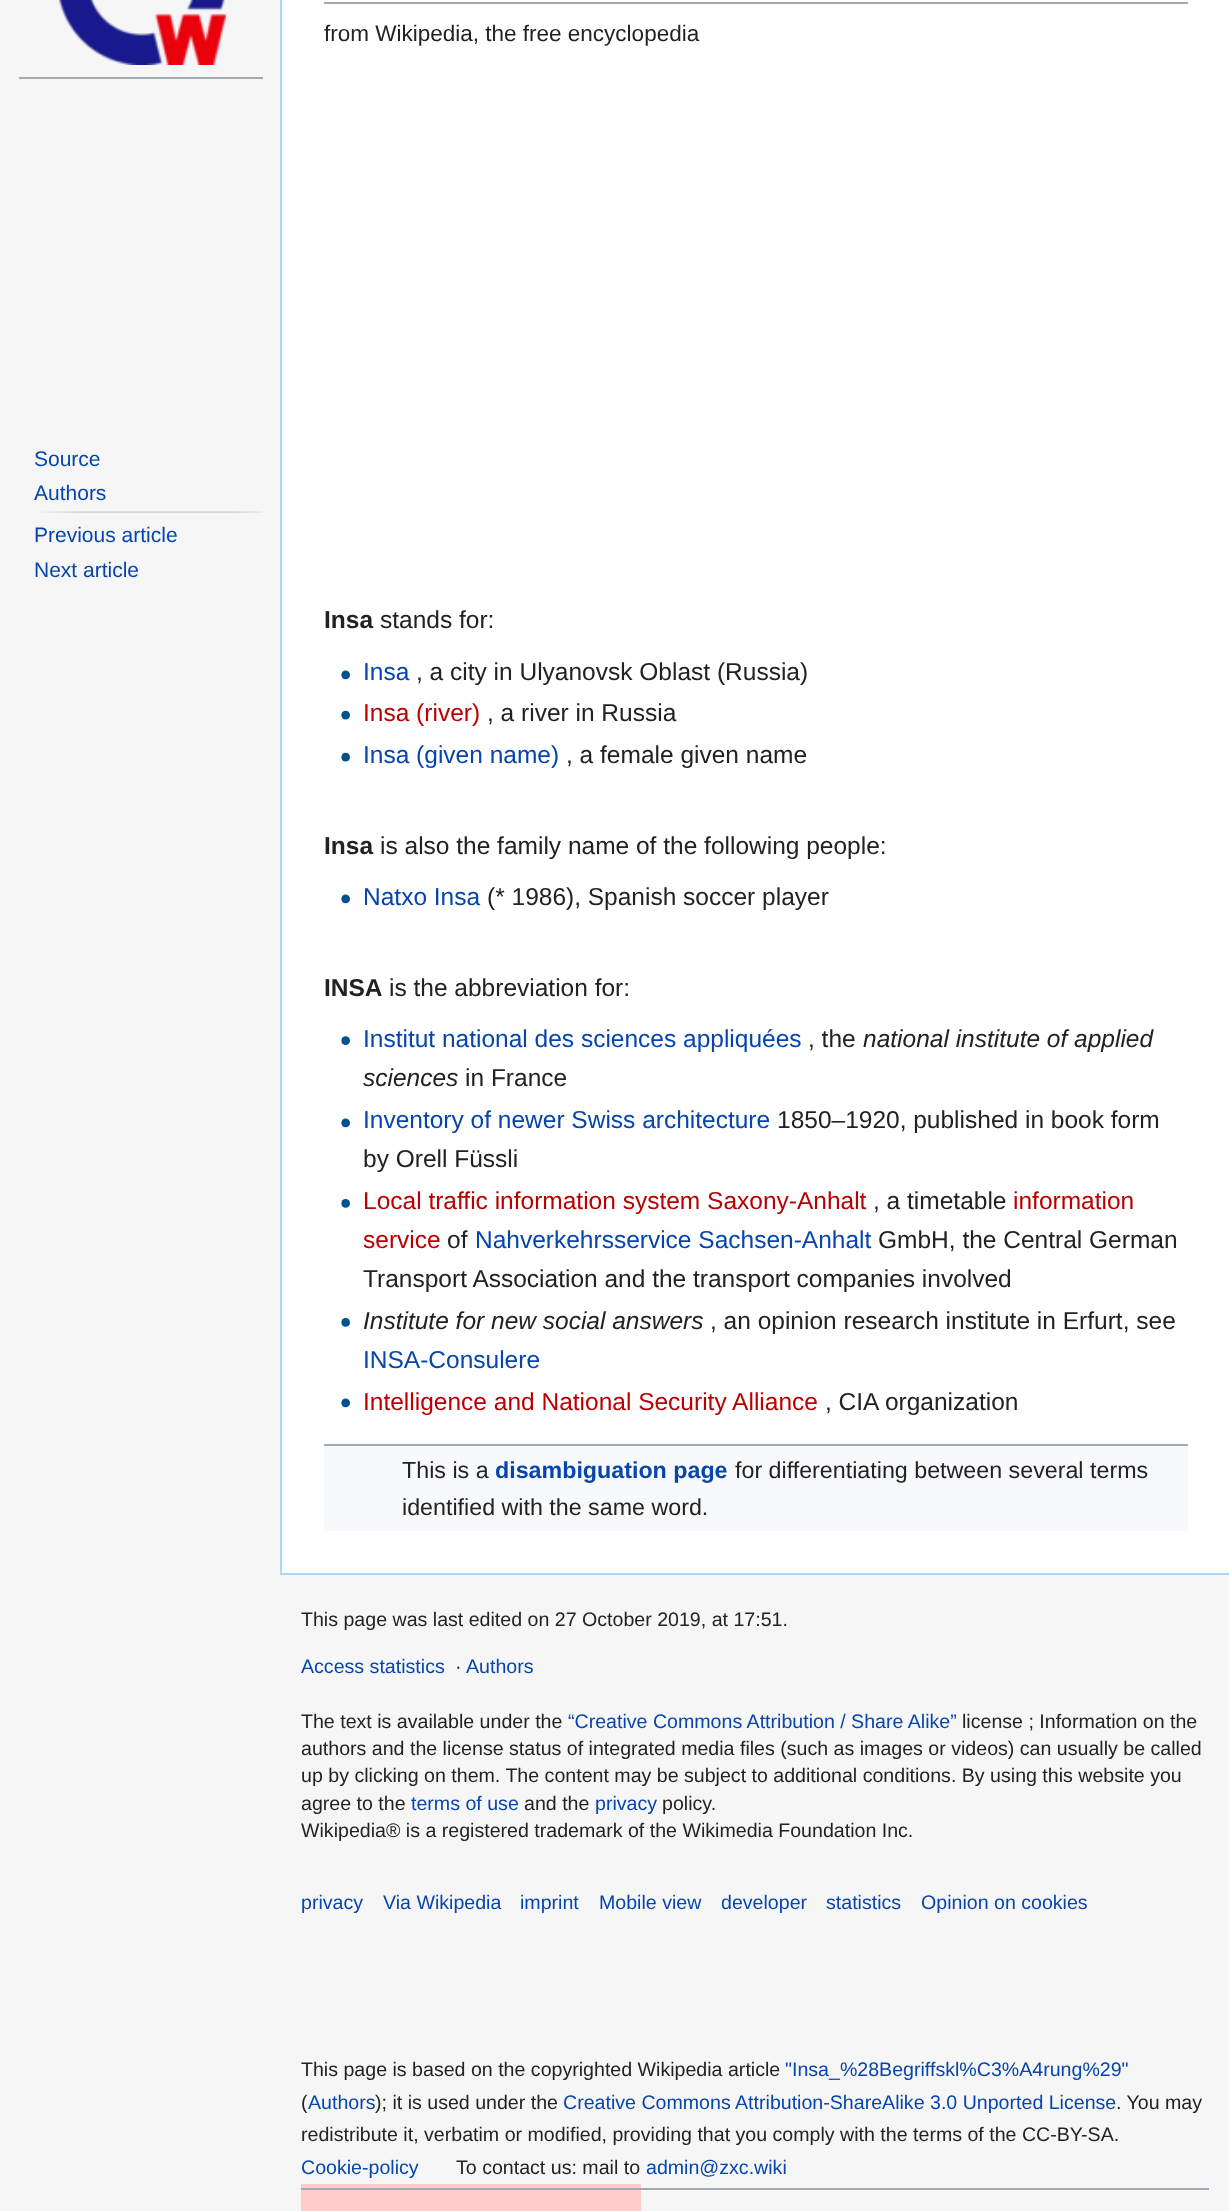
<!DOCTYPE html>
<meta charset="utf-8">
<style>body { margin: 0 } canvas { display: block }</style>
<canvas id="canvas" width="1229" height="2211"></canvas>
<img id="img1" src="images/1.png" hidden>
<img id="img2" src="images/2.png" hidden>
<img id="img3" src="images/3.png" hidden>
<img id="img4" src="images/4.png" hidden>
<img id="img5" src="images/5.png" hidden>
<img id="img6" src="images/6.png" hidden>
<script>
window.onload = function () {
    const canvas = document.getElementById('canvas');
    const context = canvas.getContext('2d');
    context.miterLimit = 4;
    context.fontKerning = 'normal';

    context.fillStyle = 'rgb(246, 246, 246)';
    context.fillRect(0, 0, 1229, 2211);
    context.drawImage(document.getElementById('img1'), 58, 0, 168, 65);
    context.fillStyle = 'rgb(162, 169, 177)';
    context.fillRect(19, 77, 244, 2);
    context.drawImage(document.getElementById('img2'), 38, 511, 225, 2);
    context.fillStyle = 'rgb(255, 255, 255)';
    context.fillRect(282, 0, 947, 1573);
    context.fillStyle = 'rgb(167, 215, 249)';
    context.fillRect(280, 1573, 949, 2);
    context.fillRect(280, 0, 2, 1575);
    context.fillStyle = 'rgb(162, 169, 177)';
    context.fillRect(324, 2, 864, 2);
    context.drawImage(document.getElementById('img3'), 341, 670, 9, 10);
    context.drawImage(document.getElementById('img4'), 341, 710, 9, 10);
    context.drawImage(document.getElementById('img4'), 341, 752, 9, 10);
    context.drawImage(document.getElementById('img3'), 341, 894, 9, 10);
    context.drawImage(document.getElementById('img5'), 341, 1036, 9, 9);
    context.drawImage(document.getElementById('img3'), 341, 1118, 9, 10);
    context.drawImage(document.getElementById('img6'), 341, 1199, 9, 9);
    context.drawImage(document.getElementById('img6'), 341, 1318, 9, 9);
    context.drawImage(document.getElementById('img3'), 341, 1398, 9, 10);
    context.fillStyle = 'rgb(248, 249, 250)';
    context.fillRect(324, 1446, 864, 85);
    context.fillStyle = 'rgb(162, 169, 177)';
    context.fillRect(324, 1444, 864, 2);
    context.fillStyle = 'rgb(255, 204, 204)';
    context.fillRect(301, 2184, 340, 27);
    context.fillStyle = 'rgb(162, 169, 177)';
    context.fillRect(301, 2188, 908, 2);
    context.font = '21px Liberation Sans';
    context.fillStyle = 'rgb(6, 69, 173)';
    context.fillText('Source', 34, 466);
    context.fillText('Authors', 34, 500);
    context.fillText('Previous article', 34, 542);
    context.fillText('Next article', 34, 577);
    context.font = '22.5px Liberation Sans';
    context.fillStyle = 'rgb(34, 34, 34)';
    context.fillText('from Wikipedia, the free encyclopedia', 324, 41);
    context.font = 'bold 24.5px Liberation Sans';
    context.fillText('Insa', 324, 628);
    context.font = '24.5px Liberation Sans';
    context.fillText('stands for:', 380, 628);
    context.fillStyle = 'rgb(6, 69, 173)';
    context.fillText('Insa', 363, 680);
    context.fillStyle = 'rgb(34, 34, 34)';
    context.fillText(', a city in Ulyanovsk Oblast (Russia)', 416, 680);
    context.fillStyle = 'rgb(186, 0, 0)';
    context.fillText('Insa (river)', 363, 721);
    context.fillStyle = 'rgb(34, 34, 34)';
    context.fillText(', a river in Russia', 487, 721);
    context.fillStyle = 'rgb(6, 69, 173)';
    context.fillText('Insa (given name)', 363, 763);
    context.fillStyle = 'rgb(34, 34, 34)';
    context.fillText(', a female given name', 566, 763);
    context.font = 'bold 24.5px Liberation Sans';
    context.fillText('Insa', 324, 854);
    context.font = '24.5px Liberation Sans';
    context.fillText('is also the family name of the following people:', 380, 854);
    context.fillStyle = 'rgb(6, 69, 173)';
    context.fillText('Natxo Insa', 363, 905);
    context.fillStyle = 'rgb(34, 34, 34)';
    context.fillText('(* 1986), Spanish soccer player', 487, 905);
    context.font = 'bold 24.5px Liberation Sans';
    context.fillText('INSA', 324, 996);
    context.font = '24.5px Liberation Sans';
    context.fillText('is the abbreviation for:', 389, 996);
    context.fillStyle = 'rgb(6, 69, 173)';
    context.fillText('Institut national des sciences appliquées', 363, 1047);
    context.fillStyle = 'rgb(34, 34, 34)';
    context.fillText(', the', 808, 1047);
    context.font = 'italic 24.5px Liberation Sans';
    context.fillText('national institute of applied', 863, 1047);
    context.fillText('sciences', 363, 1086);
    context.font = '24.5px Liberation Sans';
    context.fillText('in France', 465, 1086);
    context.fillStyle = 'rgb(6, 69, 173)';
    context.fillText('Inventory of newer Swiss architecture', 363, 1128);
    context.fillStyle = 'rgb(34, 34, 34)';
    context.fillText('1850–1920, published in book form', 777, 1128);
    context.fillText('by Orell Füssli', 363, 1167);
    context.fillStyle = 'rgb(186, 0, 0)';
    context.fillText('Local traffic information system Saxony-Anhalt', 363, 1209);
    context.fillStyle = 'rgb(34, 34, 34)';
    context.fillText(', a timetable', 873, 1209);
    context.fillStyle = 'rgb(186, 0, 0)';
    context.fillText('information', 1013, 1209);
    context.fillText('service', 363, 1248);
    context.fillStyle = 'rgb(34, 34, 34)';
    context.fillText('of', 447, 1248);
    context.fillStyle = 'rgb(6, 69, 173)';
    context.fillText('Nahverkehrsservice Sachsen-Anhalt', 475, 1248);
    context.fillStyle = 'rgb(34, 34, 34)';
    context.fillText('GmbH, the Central German', 878, 1248);
    context.fillText('Transport Association and the transport companies involved', 363, 1287);
    context.font = 'italic 24.5px Liberation Sans';
    context.fillText('Institute for new social answers', 363, 1329);
    context.font = '24.5px Liberation Sans';
    context.fillText(', an opinion research institute in Erfurt, see', 710, 1329);
    context.fillStyle = 'rgb(6, 69, 173)';
    context.fillText('INSA-Consulere', 363, 1368);
    context.fillStyle = 'rgb(186, 0, 0)';
    context.fillText('Intelligence and National Security Alliance', 363, 1410);
    context.fillStyle = 'rgb(34, 34, 34)';
    context.fillText(', CIA organization', 825, 1410);
    context.font = '23.25px Liberation Sans';
    context.fillText('This is a', 402, 1478);
    context.font = 'bold 23.25px Liberation Sans';
    context.fillStyle = 'rgb(6, 69, 173)';
    context.fillText('disambiguation page', 495, 1478);
    context.font = '23.25px Liberation Sans';
    context.fillStyle = 'rgb(34, 34, 34)';
    context.fillText('for differentiating between several terms', 735, 1478);
    context.fillText('identified with the same word.', 402, 1515);
    context.font = '19.6px Liberation Sans';
    context.fillText('This page was last edited on 27 October 2019, at 17:51.', 301, 1626);
    context.fillStyle = 'rgb(6, 69, 173)';
    context.fillText('Access statistics', 301, 1673);
    context.fillStyle = 'rgb(34, 34, 34)';
    context.fillText('·', 455, 1673);
    context.fillStyle = 'rgb(6, 69, 173)';
    context.fillText('Authors', 466, 1673);
    context.fillStyle = 'rgb(34, 34, 34)';
    context.fillText('The text is available under the', 301, 1728);
    context.fillStyle = 'rgb(6, 69, 173)';
    context.fillText('“Creative Commons Attribution / Share Alike”', 568, 1728);
    context.fillStyle = 'rgb(34, 34, 34)';
    context.fillText('license ; Information on the', 962, 1728);
    context.fillText('authors and the license status of integrated media files (such as images or videos) can usually be called', 301, 1755);
    context.fillText('up by clicking on them. The content may be subject to additional conditions. By using this website you', 301, 1782);
    context.fillText('agree to the', 301, 1810);
    context.fillStyle = 'rgb(6, 69, 173)';
    context.fillText('terms of use', 411, 1810);
    context.fillStyle = 'rgb(34, 34, 34)';
    context.fillText('and the', 524, 1810);
    context.fillStyle = 'rgb(6, 69, 173)';
    context.fillText('privacy', 595, 1810);
    context.fillStyle = 'rgb(34, 34, 34)';
    context.fillText('policy.', 662, 1810);
    context.fillText('Wikipedia® is a registered trademark of the Wikimedia Foundation Inc.', 301, 1837);
    context.fillStyle = 'rgb(6, 69, 173)';
    context.fillText('privacy', 301, 1909);
    context.fillText('Via Wikipedia', 383, 1909);
    context.fillText('imprint', 520, 1909);
    context.fillText('Mobile view', 599, 1909);
    context.fillText('developer', 721, 1909);
    context.fillText('statistics', 826, 1909);
    context.fillText('Opinion on cookies', 921, 1909);
    context.fillStyle = 'rgb(34, 34, 34)';
    context.fillText('This page is based on the copyrighted Wikipedia article', 301, 2076);
    context.fillStyle = 'rgb(6, 69, 173)';
    context.fillText('"Insa_%28Begriffskl%C3%A4rung%29"', 785, 2076);
    context.fillStyle = 'rgb(34, 34, 34)';
    context.fillText('(', 301, 2109);
    context.fillStyle = 'rgb(6, 69, 173)';
    context.fillText('Authors', 308, 2109);
    context.fillStyle = 'rgb(34, 34, 34)';
    context.fillText('); it is used under the', 375, 2109);
    context.fillStyle = 'rgb(6, 69, 173)';
    context.fillText('Creative Commons Attribution-ShareAlike 3.0 Unported License', 563, 2109);
    context.fillStyle = 'rgb(34, 34, 34)';
    context.fillText('. You may', 1116, 2109);
    context.fillText('redistribute it, verbatim or modified, providing that you comply with the terms of the CC-BY-SA.', 301, 2141);
    context.fillStyle = 'rgb(6, 69, 173)';
    context.fillText('Cookie-policy', 301, 2174);
    context.fillStyle = 'rgb(34, 34, 34)';
    context.fillText('To contact us: mail to', 456, 2174);
    context.fillStyle = 'rgb(6, 69, 173)';
    context.fillText('admin@zxc.wiki', 646, 2174);
};
</script>
